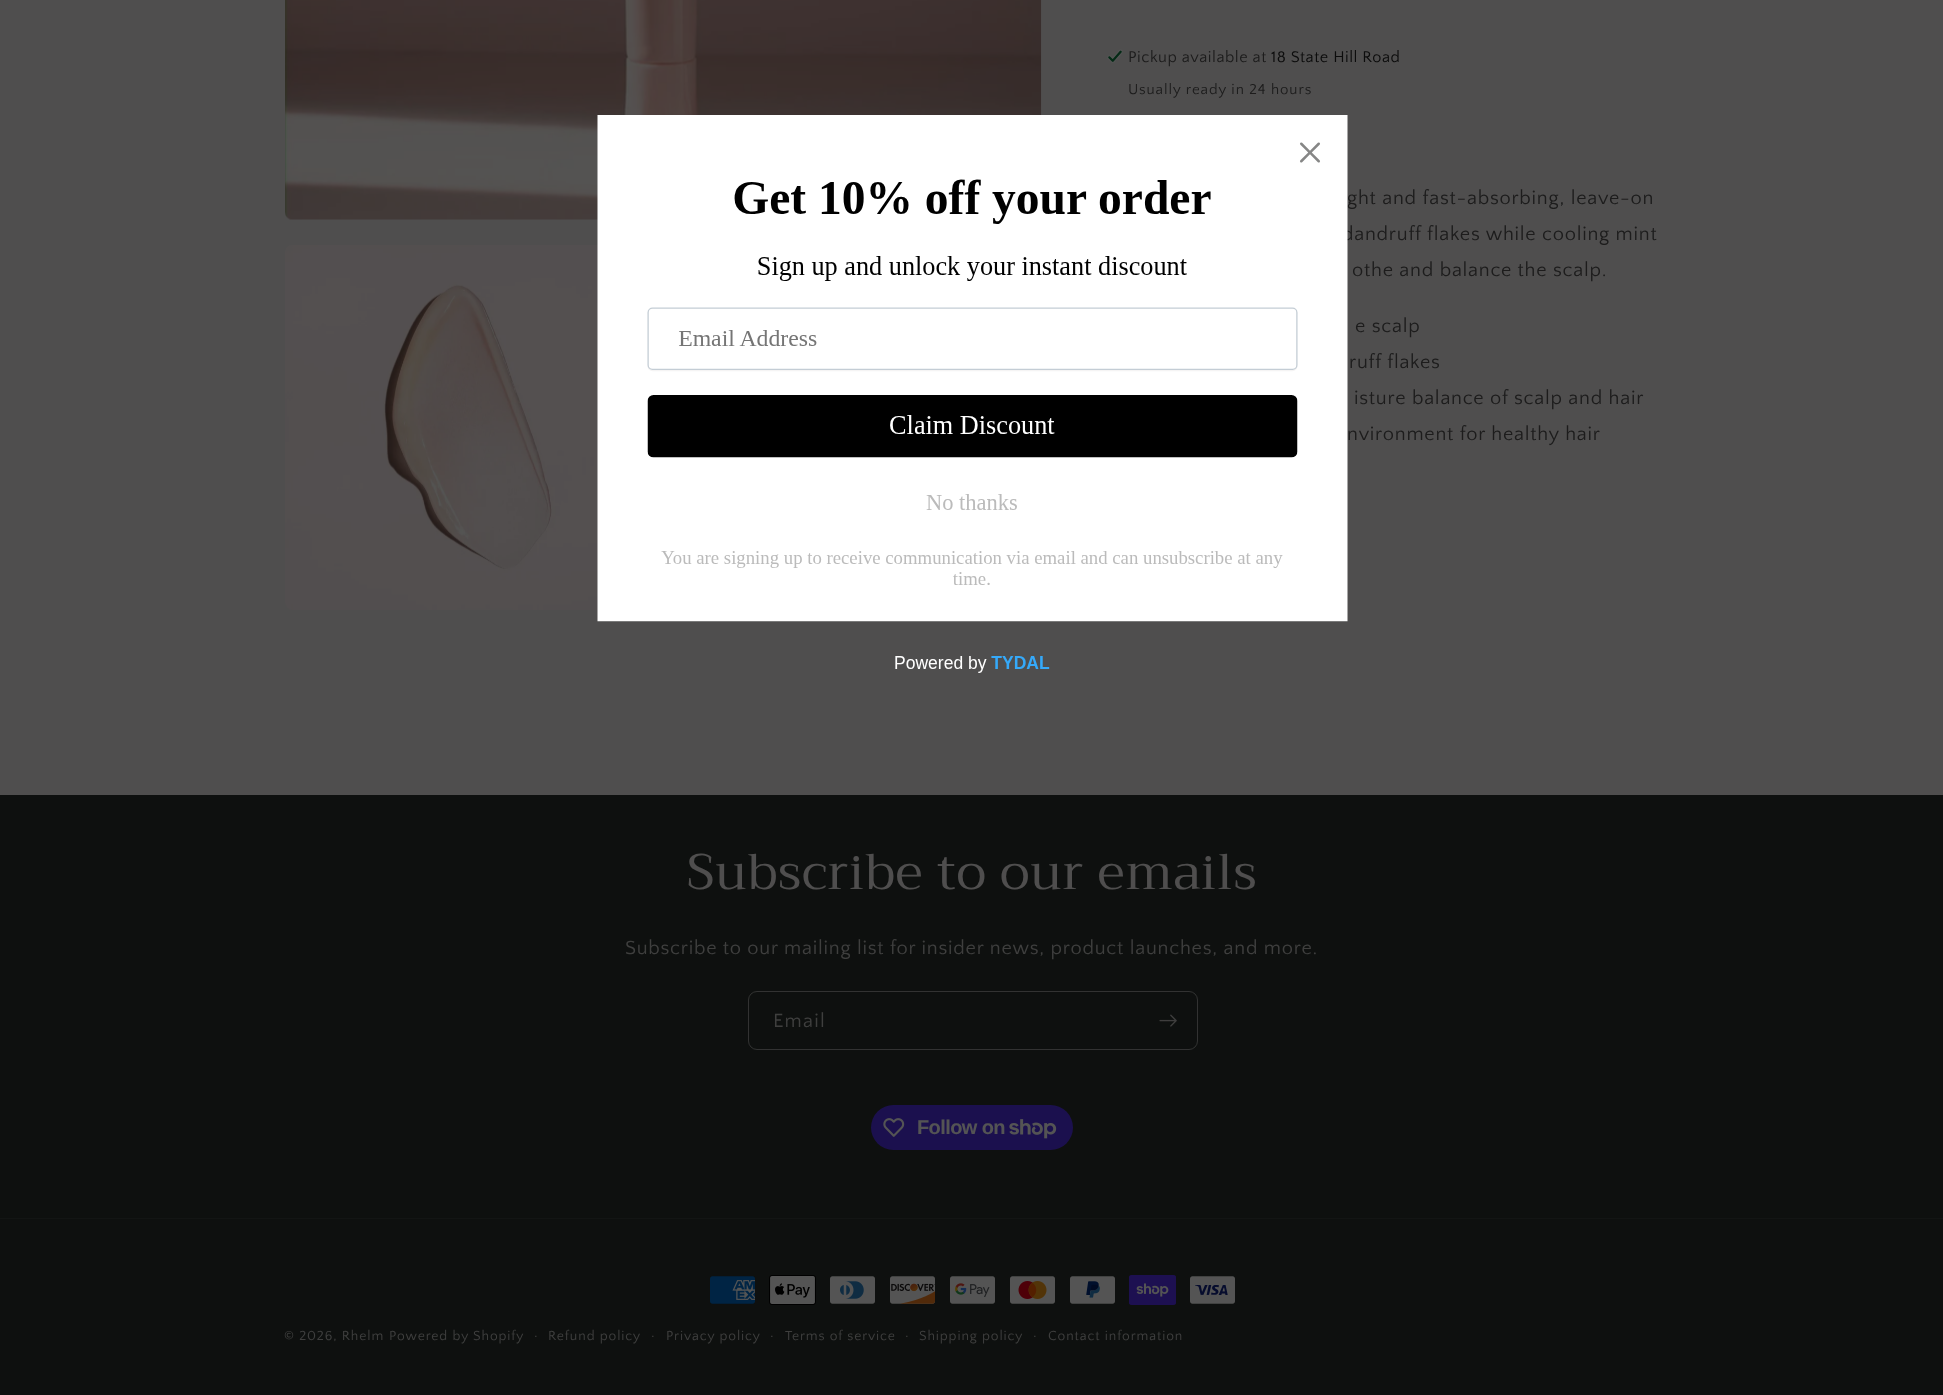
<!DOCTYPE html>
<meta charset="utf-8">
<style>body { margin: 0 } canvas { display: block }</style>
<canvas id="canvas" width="1943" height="1395"></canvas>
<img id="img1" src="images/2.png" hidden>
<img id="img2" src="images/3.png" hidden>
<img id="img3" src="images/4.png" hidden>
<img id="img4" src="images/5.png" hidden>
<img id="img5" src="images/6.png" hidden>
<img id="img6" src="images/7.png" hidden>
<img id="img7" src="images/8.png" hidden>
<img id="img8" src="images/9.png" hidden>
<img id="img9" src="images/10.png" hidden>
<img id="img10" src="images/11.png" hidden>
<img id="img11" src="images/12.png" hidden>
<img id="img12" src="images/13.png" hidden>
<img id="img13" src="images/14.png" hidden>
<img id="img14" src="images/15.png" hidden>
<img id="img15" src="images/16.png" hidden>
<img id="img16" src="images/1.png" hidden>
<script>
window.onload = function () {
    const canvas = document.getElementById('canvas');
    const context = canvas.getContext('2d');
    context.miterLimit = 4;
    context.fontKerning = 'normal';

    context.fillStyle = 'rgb(239, 236, 236)';
    context.fillRect(0, 0, 1943, 1395);
    context.drawImage(document.getElementById('img1'), 285, 0, 757, 220);
    context.drawImage(document.getElementById('img2'), 285, 245, 313, 365);
    context.drawImage(document.getElementById('img3'), 1107, 49, 16, 14);
    context.fillStyle = 'rgb(44, 51, 47)';
    context.fillRect(0, 795, 1943, 600);
    context.beginPath();
    context.roundRect(748.5, 991.5, 449, 58, 8.5);
    context.strokeStyle = 'rgb(151, 153, 151)';
    context.stroke();
    context.drawImage(document.getElementById('img4'), 1159, 1014, 18, 13);
    context.fillStyle = 'rgb(84, 51, 235)';
    context.beginPath();
    context.roundRect(871, 1105, 202, 45, 22.5);
    context.fill();
    context.drawImage(document.getElementById('img5'), 883, 1118, 22, 19);
    context.drawImage(document.getElementById('img6'), 1009, 1119, 48, 20);
    context.fillStyle = 'rgb(60, 66, 62)';
    context.fillRect(0, 1218, 1943, 1);
    context.drawImage(document.getElementById('img7'), 710, 1276, 45, 28);
    context.drawImage(document.getElementById('img8'), 769, 1275, 47, 30);
    context.drawImage(document.getElementById('img9'), 830, 1276, 45, 28);
    context.drawImage(document.getElementById('img10'), 890, 1276, 45, 28);
    context.drawImage(document.getElementById('img11'), 950, 1276, 45, 28);
    context.drawImage(document.getElementById('img12'), 1010, 1276, 45, 28);
    context.drawImage(document.getElementById('img13'), 1070, 1276, 45, 28);
    context.drawImage(document.getElementById('img14'), 1129, 1275, 47, 30);
    context.drawImage(document.getElementById('img15'), 1190, 1276, 45, 28);
    context.letterSpacing = '0.5px';
    context.font = '16.25px Quattrocento Sans';
    context.fillStyle = 'rgb(88, 87, 87)';
    context.fillText('Pickup available at', 1128, 62);
    context.fillStyle = 'rgb(37, 37, 37)';
    context.fillText('18 State Hill Road', 1271, 62);
    context.letterSpacing = '0.9px';
    context.font = '15px Quattrocento Sans';
    context.fillStyle = 'rgb(88, 87, 87)';
    context.fillText('Usually ready in 24 hours', 1128, 94);
    context.letterSpacing = '0.75px';
    context.font = '20px Quattrocento Sans';
    context.fillText('ght and fast-absorbing, leave-on', 1347, 204);
    context.fillText('dandruff flakes while cooling mint', 1342, 240);
    context.fillText('othe and balance the scalp.', 1352, 276);
    context.fillText('e scalp', 1355, 332);
    context.fillText('ruff flakes', 1349, 368);
    context.fillText('isture balance of scalp and hair', 1354, 404);
    context.fillText('nvironment for healthy hair', 1347, 440);
    context.font = '50px Trirong';
    context.fillStyle = 'rgb(239, 236, 236)';
    context.fillText('Subscribe to our emails', 687, 889);
    context.font = '20px Quattrocento Sans';
    context.fillStyle = 'rgb(190, 190, 189)';
    context.fillText('Subscribe to our mailing list for insider news, product launches, and more.', 625, 954);
    context.letterSpacing = '1.25px';
    context.fillText('Email', 773, 1027);
    context.letterSpacing = '-0.6px';
    context.font = 'bold 20px Liberation Sans';
    context.fillStyle = 'rgb(255, 255, 255)';
    context.fillText('Follow on', 917, 1134);
    context.letterSpacing = '0.9px';
    context.font = '13.75px Quattrocento Sans';
    context.fillStyle = 'rgb(190, 190, 189)';
    context.fillText('© 2026, Rhelm', 284, 1340);
    context.fillText('Powered by Shopify', 389, 1340);
    context.font = '15px Quattrocento Sans';
    context.fillText('·', 534, 1340);
    context.font = '13.75px Quattrocento Sans';
    context.fillText('Refund policy', 548, 1340);
    context.font = '15px Quattrocento Sans';
    context.fillText('·', 651, 1340);
    context.font = '13.75px Quattrocento Sans';
    context.fillText('Privacy policy', 666, 1340);
    context.font = '15px Quattrocento Sans';
    context.fillText('·', 770, 1340);
    context.font = '13.75px Quattrocento Sans';
    context.fillText('Terms of service', 785, 1340);
    context.font = '15px Quattrocento Sans';
    context.fillText('·', 905, 1340);
    context.font = '13.75px Quattrocento Sans';
    context.fillText('Shipping policy', 919, 1340);
    context.font = '15px Quattrocento Sans';
    context.fillText('·', 1033, 1340);
    context.font = '13.75px Quattrocento Sans';
    context.fillText('Contact information', 1048, 1340);
    context.drawImage(document.getElementById('img16'), 0, 0, 1943, 1395);
};
</script>
